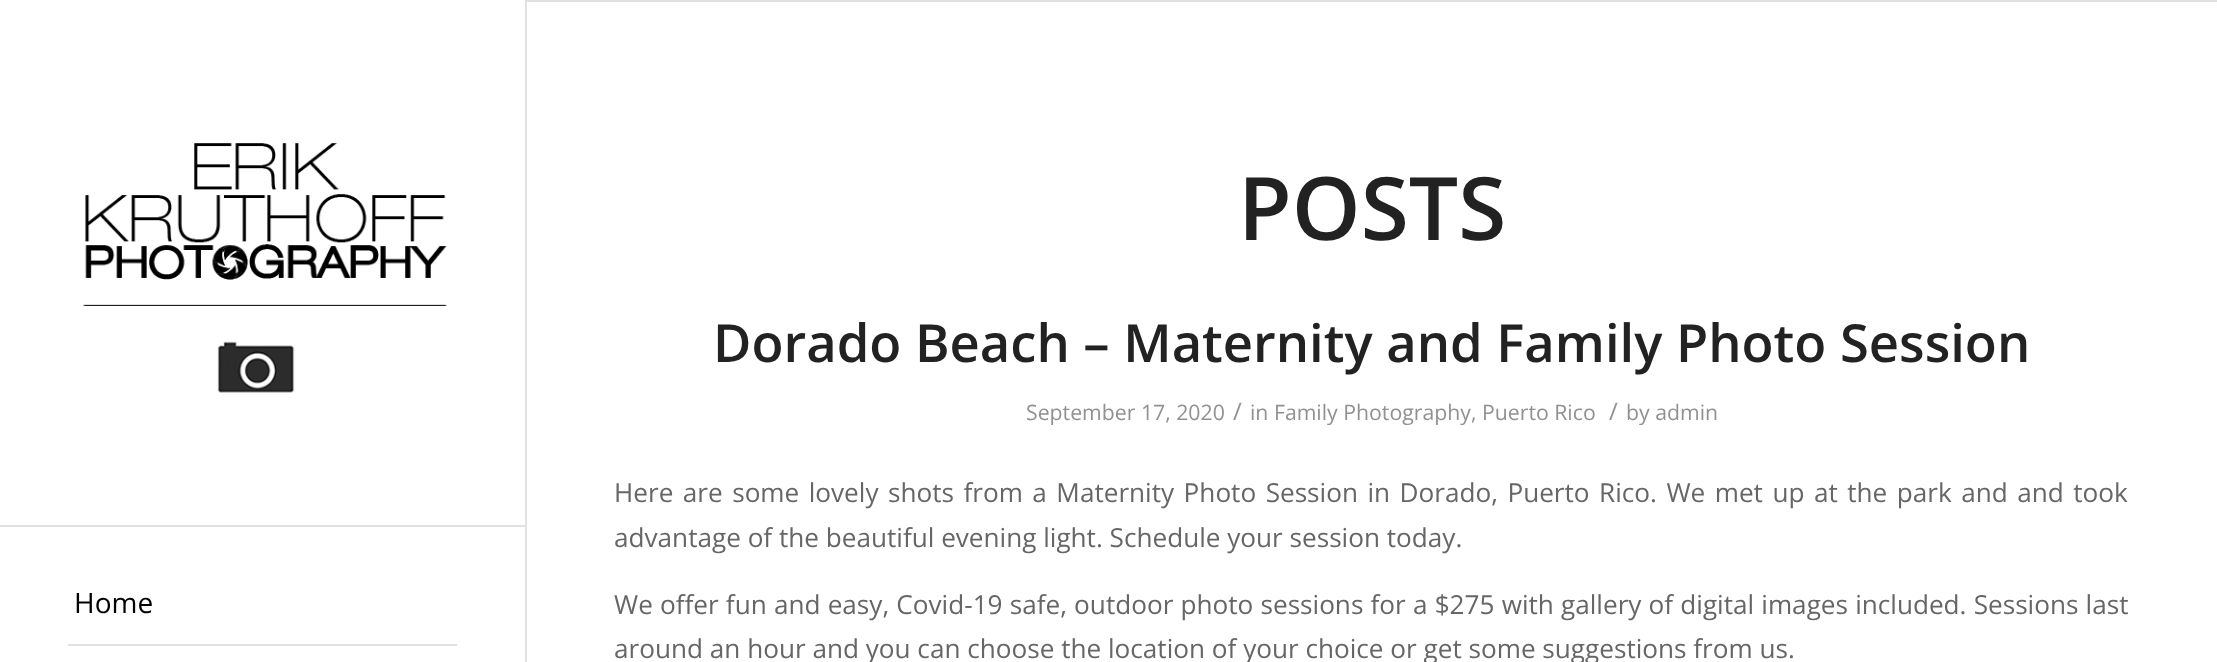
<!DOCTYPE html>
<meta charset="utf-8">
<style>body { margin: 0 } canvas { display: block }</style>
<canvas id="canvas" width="2217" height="662"></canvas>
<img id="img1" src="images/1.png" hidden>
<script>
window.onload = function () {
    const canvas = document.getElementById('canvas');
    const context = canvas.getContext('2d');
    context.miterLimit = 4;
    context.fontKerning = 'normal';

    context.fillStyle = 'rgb(255, 255, 255)';
    context.fillRect(0, 0, 2217, 662);
    context.fillStyle = 'rgb(225, 225, 225)';
    context.fillRect(0, 525, 525, 2);
    context.drawImage(document.getElementById('img1'), 82, 143, 365, 250);
    context.fillRect(68, 644, 389, 2);
    context.fillRect(525, 0, 2, 662);
    context.fillRect(527, 0, 1690, 2);
    context.font = '28px Open Sans';
    context.fillStyle = 'rgb(0, 0, 0)';
    context.fillText('Home', 74, 613);
    context.font = '600 87.5px Open Sans';
    context.fillStyle = 'rgb(34, 34, 34)';
    context.fillText('POSTS', 1238, 240);
    context.font = '600 52.5px Open Sans';
    context.fillText('Dorado Beach – Maternity and Family Photo Session', 713, 362);
    context.font = '21.25px Open Sans';
    context.fillStyle = 'rgb(145, 145, 145)';
    context.fillText('September 17, 2020', 1026, 420);
    context.font = '24px Open Sans';
    context.fillText('/', 1233, 420);
    context.font = '21.25px Open Sans';
    context.fillText('in Family Photography, Puerto Rico', 1250, 420);
    context.font = '24px Open Sans';
    context.fillText('/', 1609, 420);
    context.font = '21.25px Open Sans';
    context.fillText('by admin', 1626, 420);
    context.wordSpacing = '2.7px';
    context.font = '26.15px Open Sans';
    context.fillStyle = 'rgb(102, 102, 102)';
    context.fillText('Here are some lovely shots from a Maternity Photo Session in Dorado, Puerto Rico. We met up at the park and and took', 614, 502);
    context.wordSpacing = '0px';
    context.fillText('advantage of the beautiful evening light. Schedule your session today.', 614, 547);
    context.wordSpacing = '0.4px';
    context.fillText('We offer fun and easy, Covid-19 safe, outdoor photo sessions for a $275 with gallery of digital images included. Sessions last', 614, 614);
    context.wordSpacing = '0px';
    context.fillText('around an hour and you can choose the location of your choice or get some suggestions from us.', 614, 658);
};
</script>
